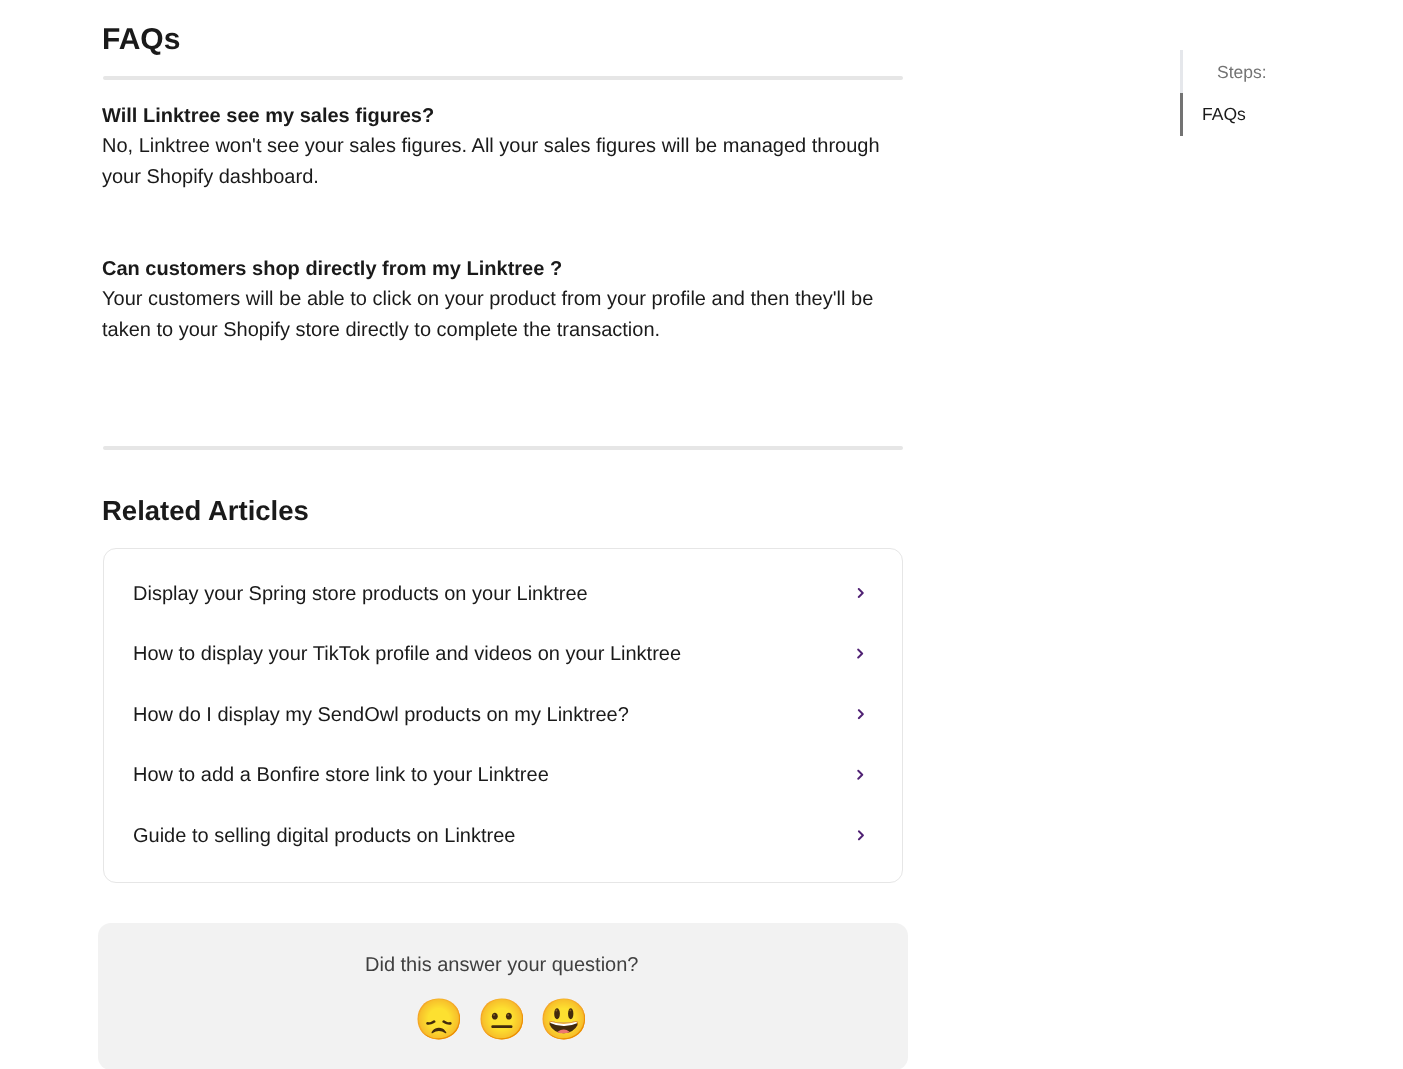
<!DOCTYPE html>
<meta charset="utf-8">
<style>body { margin: 0 } canvas { display: block }</style>
<canvas id="canvas" width="1403" height="1069"></canvas>
<img id="img1" src="images/1.png" hidden>
<img id="img2" src="images/2.png" hidden>
<img id="img3" src="images/3.png" hidden>
<img id="img4" src="images/4.png" hidden>
<img id="img5" src="images/5.png" hidden>
<script>
window.onload = function () {
    const canvas = document.getElementById('canvas');
    const context = canvas.getContext('2d');
    context.miterLimit = 4;
    context.fontKerning = 'normal';

    context.fillStyle = 'rgb(255, 255, 255)';
    context.fillRect(0, 0, 1403, 1069);
    context.fillStyle = 'rgb(230, 230, 230)';
    context.beginPath();
    context.roundRect(103, 76, 800, 4, 2);
    context.fill();
    context.beginPath();
    context.roundRect(103, 446, 800, 4, 2);
    context.fill();
    context.beginPath();
    context.roundRect(103.5, 548.5, 799, 334, 12.5);
    context.strokeStyle = 'rgb(230, 230, 230)';
    context.stroke();
    context.drawImage(document.getElementById('img1'), 857, 588, 7, 10);
    context.drawImage(document.getElementById('img2'), 857, 648, 7, 11);
    context.drawImage(document.getElementById('img3'), 857, 709, 7, 11);
    context.drawImage(document.getElementById('img4'), 857, 769, 7, 11);
    context.drawImage(document.getElementById('img5'), 857, 830, 7, 11);
    context.fillStyle = 'rgb(242, 242, 242)';
    context.beginPath();
    context.roundRect(98, 923, 810, 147, 13);
    context.fill();
    context.fillStyle = 'rgb(229, 231, 235)';
    context.fillRect(1180, 50, 3, 43);
    context.fillStyle = 'rgb(115, 115, 115)';
    context.fillRect(1180, 93, 3, 43);
    context.font = 'bold 30px Liberation Sans';
    context.fillStyle = 'rgb(26, 26, 26)';
    context.fillText('FAQs', 102, 49);
    context.font = 'bold 20px Liberation Sans';
    context.fillText('Will Linktree see my sales figures?', 102, 122);
    context.font = '20px Liberation Sans';
    context.fillText('No, Linktree won\'t see your sales figures. All your sales figures will be managed through', 102, 152);
    context.fillText('your Shopify dashboard.', 102, 183);
    context.font = 'bold 20px Liberation Sans';
    context.fillText('Can customers shop directly from my Linktree ?', 102, 275);
    context.font = '20px Liberation Sans';
    context.fillText('Your customers will be able to click on your product from your profile and then they\'ll be', 102, 305);
    context.fillText('taken to your Shopify store directly to complete the transaction.', 102, 336);
    context.font = 'bold 27.5px Liberation Sans';
    context.fillText('Related Articles', 102, 520);
    context.font = '20px Liberation Sans';
    context.fillText('Display your Spring store products on your Linktree', 133, 600);
    context.fillText('How to display your TikTok profile and videos on your Linktree', 133, 660);
    context.fillText('How do I display my SendOwl products on my Linktree?', 133, 721);
    context.fillText('How to add a Bonfire store link to your Linktree', 133, 781);
    context.fillText('Guide to selling digital products on Linktree', 133, 842);
    context.fillStyle = 'rgb(64, 64, 64)';
    context.fillText('Did this answer your question?', 365, 971);
    context.font = '40px Noto Color Emoji';
    context.fillText('😞', 414, 1033);
    context.fillText('😐', 477, 1033);
    context.fillText('😃', 539, 1033);
    context.font = '17.5px Liberation Sans';
    context.fillStyle = 'rgb(115, 115, 115)';
    context.fillText('Steps:', 1217, 78);
    context.fillStyle = 'rgb(26, 26, 26)';
    context.fillText('FAQs', 1202, 120);
};
</script>
